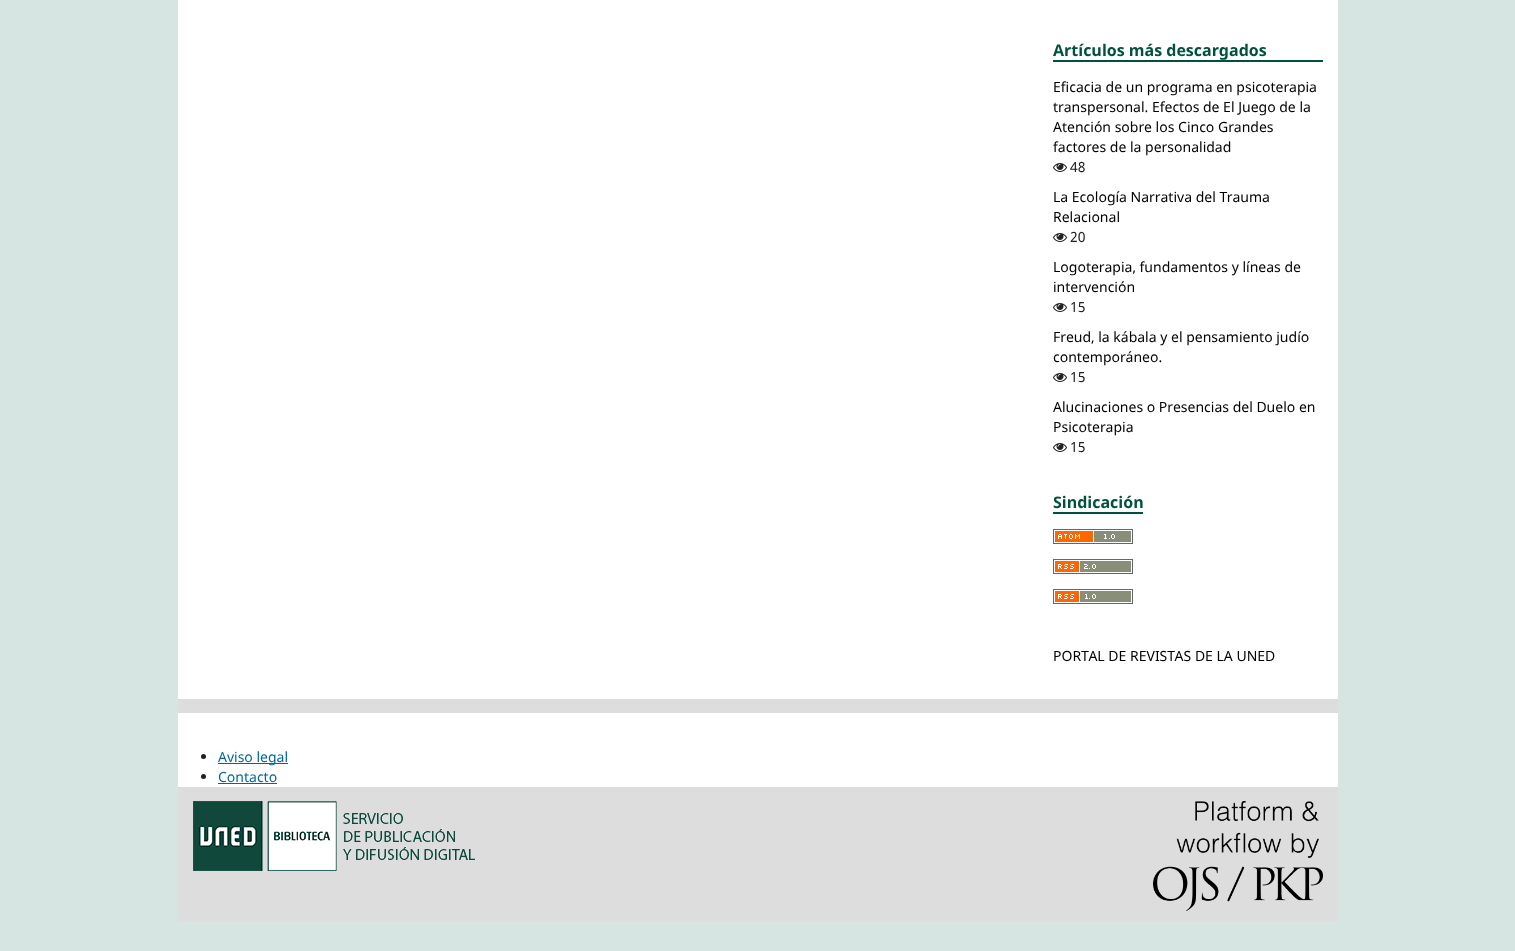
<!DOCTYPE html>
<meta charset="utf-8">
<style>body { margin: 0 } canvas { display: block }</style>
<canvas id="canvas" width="1515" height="951"></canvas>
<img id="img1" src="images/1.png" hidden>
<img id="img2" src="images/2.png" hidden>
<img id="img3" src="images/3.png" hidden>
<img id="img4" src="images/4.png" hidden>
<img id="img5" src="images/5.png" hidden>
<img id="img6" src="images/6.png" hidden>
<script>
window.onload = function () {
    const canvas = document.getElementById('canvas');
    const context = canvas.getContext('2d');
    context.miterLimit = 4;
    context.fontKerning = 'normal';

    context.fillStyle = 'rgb(214, 229, 226)';
    context.fillRect(0, 0, 1515, 951);
    context.fillStyle = 'rgb(255, 255, 255)';
    context.fillRect(178, 0, 1160, 699);
    context.fillStyle = 'rgb(0, 82, 62)';
    context.fillRect(1053, 60, 270, 2);
    context.drawImage(document.getElementById('img1'), 1053, 163, 14, 9);
    context.drawImage(document.getElementById('img1'), 1053, 233, 14, 9);
    context.drawImage(document.getElementById('img1'), 1053, 303, 14, 9);
    context.drawImage(document.getElementById('img1'), 1053, 373, 14, 9);
    context.drawImage(document.getElementById('img1'), 1053, 443, 14, 9);
    context.fillRect(1053, 512, 90, 2);
    context.drawImage(document.getElementById('img2'), 1053, 529, 80, 15);
    context.drawImage(document.getElementById('img3'), 1053, 559, 80, 15);
    context.drawImage(document.getElementById('img4'), 1053, 589, 80, 15);
    context.fillStyle = 'rgb(221, 221, 221)';
    context.fillRect(178, 699, 1160, 222);
    context.fillStyle = 'rgb(255, 255, 255)';
    context.fillRect(178, 713, 1160, 74);
    context.fillStyle = 'rgb(33, 33, 33)';
    context.beginPath();
    context.arc(203.5, 756.5, 2.5, 0, 2 * Math.PI);
    context.fill();
    context.fillStyle = 'rgb(0, 103, 152)';
    context.fillRect(218, 763, 70, 1);
    context.fillStyle = 'rgb(33, 33, 33)';
    context.beginPath();
    context.arc(203.5, 776.5, 2.5, 0, 2 * Math.PI);
    context.fill();
    context.fillStyle = 'rgb(0, 103, 152)';
    context.fillRect(218, 783, 59, 1);
    context.drawImage(document.getElementById('img5'), 193, 801, 283, 70);
    context.drawImage(document.getElementById('img6'), 1153, 801, 170, 110);
    context.font = 'bold 16px Noto Sans';
    context.fillStyle = 'rgb(0, 82, 62)';
    context.fillText('Artículos más descargados', 1053, 56);
    context.font = '14px Noto Sans';
    context.fillStyle = 'rgb(0, 0, 0)';
    context.fillText('Eficacia de un programa en psicoterapia', 1053, 92);
    context.fillText('transpersonal. Efectos de El Juego de la', 1053, 112);
    context.fillText('Atención sobre los Cinco Grandes', 1053, 132);
    context.fillText('factores de la personalidad', 1053, 152);
    context.fillStyle = 'rgb(33, 33, 33)';
    context.fillText('48', 1070, 172);
    context.fillStyle = 'rgb(0, 0, 0)';
    context.fillText('La Ecología Narrativa del Trauma', 1053, 202);
    context.fillText('Relacional', 1053, 222);
    context.fillStyle = 'rgb(33, 33, 33)';
    context.fillText('20', 1070, 242);
    context.fillStyle = 'rgb(0, 0, 0)';
    context.fillText('Logoterapia, fundamentos y líneas de', 1053, 272);
    context.fillText('intervención', 1053, 292);
    context.fillStyle = 'rgb(33, 33, 33)';
    context.fillText('15', 1070, 312);
    context.fillStyle = 'rgb(0, 0, 0)';
    context.fillText('Freud, la kábala y el pensamiento judío', 1053, 342);
    context.fillText('contemporáneo.', 1053, 362);
    context.fillStyle = 'rgb(33, 33, 33)';
    context.fillText('15', 1070, 382);
    context.fillStyle = 'rgb(0, 0, 0)';
    context.fillText('Alucinaciones o Presencias del Duelo en', 1053, 412);
    context.fillText('Psicoterapia', 1053, 432);
    context.fillStyle = 'rgb(33, 33, 33)';
    context.fillText('15', 1070, 452);
    context.font = 'bold 16px Noto Sans';
    context.fillStyle = 'rgb(0, 82, 62)';
    context.fillText('Sindicación', 1053, 508);
    context.font = '14px Noto Sans';
    context.fillStyle = 'rgb(0, 0, 0)';
    context.fillText('PORTAL DE REVISTAS DE LA UNED', 1053, 661);
    context.fillStyle = 'rgb(0, 103, 152)';
    context.fillText('Aviso legal', 218, 762);
    context.fillText('Contacto', 218, 782);
};
</script>
